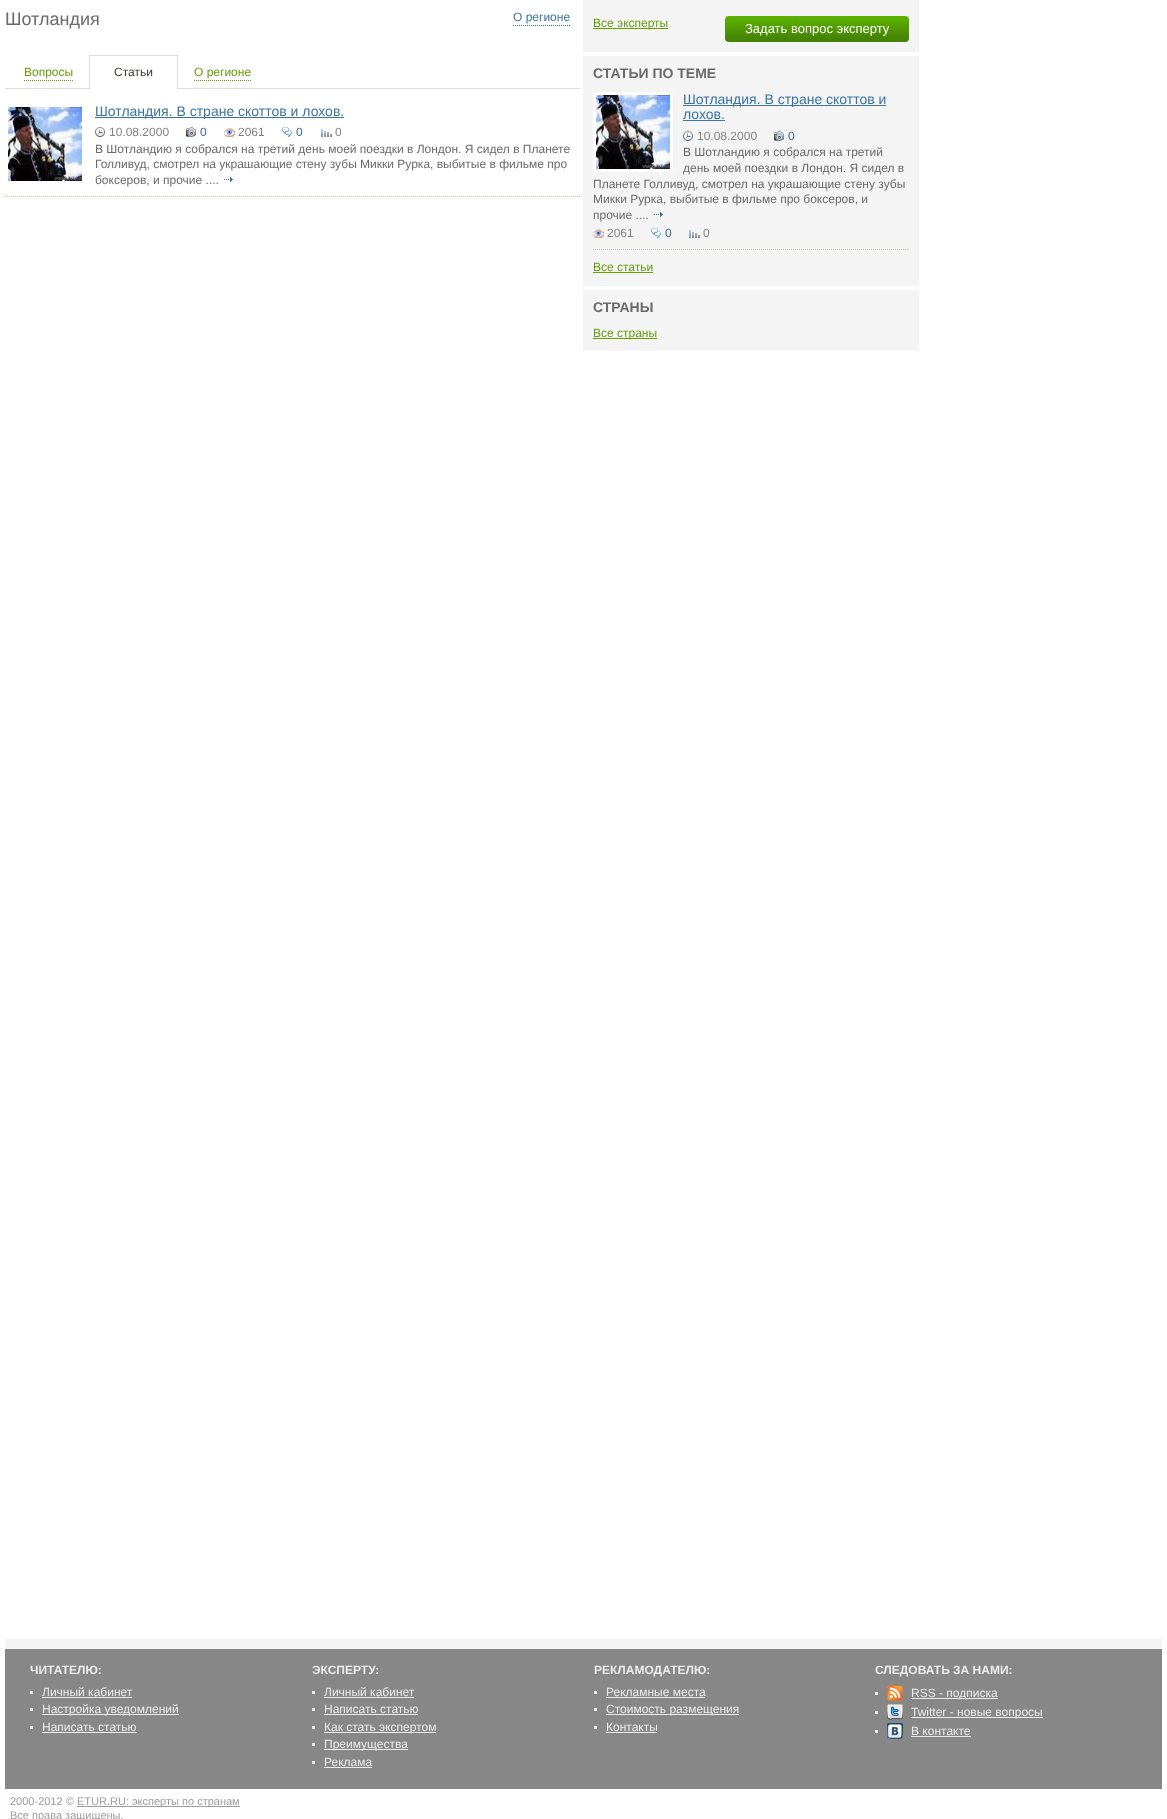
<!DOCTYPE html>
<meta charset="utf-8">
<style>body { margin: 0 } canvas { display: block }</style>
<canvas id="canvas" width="1167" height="1819"></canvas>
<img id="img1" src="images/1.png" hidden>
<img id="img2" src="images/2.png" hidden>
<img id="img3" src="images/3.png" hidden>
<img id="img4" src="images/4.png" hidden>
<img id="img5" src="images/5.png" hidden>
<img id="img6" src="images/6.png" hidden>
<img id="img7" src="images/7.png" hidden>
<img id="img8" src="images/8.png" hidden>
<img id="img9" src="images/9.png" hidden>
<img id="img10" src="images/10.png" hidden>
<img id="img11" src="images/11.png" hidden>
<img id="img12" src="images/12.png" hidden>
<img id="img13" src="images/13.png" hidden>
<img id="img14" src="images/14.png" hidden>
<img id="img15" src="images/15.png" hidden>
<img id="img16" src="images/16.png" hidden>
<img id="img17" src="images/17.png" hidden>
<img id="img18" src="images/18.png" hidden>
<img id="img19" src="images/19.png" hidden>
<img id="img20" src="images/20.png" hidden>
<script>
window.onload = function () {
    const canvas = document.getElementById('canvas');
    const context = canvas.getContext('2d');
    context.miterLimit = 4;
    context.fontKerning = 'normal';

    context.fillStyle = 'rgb(255, 255, 255)';
    context.fillRect(0, 0, 1167, 1819);
    context.beginPath();
    context.moveTo(513, 25.5);
    context.lineTo(570, 25.5);
    context.strokeStyle = 'rgb(59, 116, 160)';
    context.setLineDash([1, 1]);
    context.stroke();
    context.fillStyle = 'rgb(222, 222, 222)';
    context.fillRect(5, 88, 575, 1);
    context.beginPath();
    context.moveTo(24, 80.5);
    context.lineTo(73, 80.5);
    context.strokeStyle = 'rgb(101, 160, 11)';
    context.stroke();
    context.fillStyle = 'rgb(255, 255, 255)';
    context.fillRect(90, 88, 87, 1);
    context.fillStyle = 'rgb(222, 222, 222)';
    context.fillRect(89, 55, 89, 1);
    context.fillRect(177, 55, 1, 34);
    context.fillRect(89, 55, 1, 34);
    context.beginPath();
    context.moveTo(194, 80.5);
    context.lineTo(251, 80.5);
    context.stroke();
    context.drawImage(document.getElementById('img1'), 5, 196, 575, 1);
    context.drawImage(document.getElementById('img2'), 8, 107, 74, 74);
    context.fillStyle = 'rgb(59, 116, 160)';
    context.fillRect(95, 117, 249, 1);
    context.drawImage(document.getElementById('img3'), 95, 127, 10, 10);
    context.drawImage(document.getElementById('img4'), 186, 127, 10, 10);
    context.drawImage(document.getElementById('img5'), 224, 128, 11, 9);
    context.drawImage(document.getElementById('img6'), 282, 127, 10, 10);
    context.drawImage(document.getElementById('img7'), 321, 129, 11, 8);
    context.drawImage(document.getElementById('img8'), 224, 177, 9, 5);
    context.fillStyle = 'rgb(244, 244, 244)';
    context.fillRect(583, 0, 336, 52);
    context.fillStyle = 'rgb(101, 160, 11)';
    context.fillRect(593, 28, 75, 1);
    context.drawImage(document.getElementById('img9'), 725, 16, 184, 26);
    context.fillStyle = 'rgb(244, 244, 244)';
    context.fillRect(583, 56, 336, 230);
    context.drawImage(document.getElementById('img10'), 593, 249, 315, 1);
    context.strokeStyle = 'rgb(255, 255, 255)';
    context.lineWidth = 3;
    context.setLineDash([]);
    context.strokeRect(594.5, 93.5, 77, 77);
    context.drawImage(document.getElementById('img11'), 596, 95, 74, 74);
    context.fillStyle = 'rgb(59, 116, 160)';
    context.fillRect(683, 105, 203, 1);
    context.fillRect(683, 120, 42, 1);
    context.drawImage(document.getElementById('img12'), 683, 131, 10, 10);
    context.drawImage(document.getElementById('img13'), 774, 131, 10, 10);
    context.drawImage(document.getElementById('img14'), 654, 212, 9, 5);
    context.drawImage(document.getElementById('img15'), 593, 229, 11, 9);
    context.drawImage(document.getElementById('img16'), 651, 228, 10, 10);
    context.drawImage(document.getElementById('img17'), 689, 230, 11, 8);
    context.fillStyle = 'rgb(101, 160, 11)';
    context.fillRect(593, 272, 60, 1);
    context.fillStyle = 'rgb(244, 244, 244)';
    context.fillRect(583, 290, 336, 61);
    context.fillStyle = 'rgb(101, 160, 11)';
    context.fillRect(593, 338, 64, 1);
    context.fillStyle = 'rgb(135, 135, 135)';
    context.fillRect(5, 1649, 1157, 140);
    context.fillStyle = 'rgb(244, 244, 244)';
    context.fillRect(5, 1639, 1157, 10);
    context.fillStyle = 'rgb(235, 235, 235)';
    context.fillRect(30, 1691, 3, 3);
    context.fillRect(42, 1697, 90, 1);
    context.fillRect(30, 1708, 3, 3);
    context.fillRect(42, 1714, 137, 1);
    context.fillRect(30, 1726, 3, 3);
    context.fillRect(42, 1732, 95, 1);
    context.fillRect(312, 1691, 3, 3);
    context.fillRect(324, 1697, 90, 1);
    context.fillRect(312, 1708, 3, 3);
    context.fillRect(324, 1714, 94, 1);
    context.fillRect(312, 1726, 3, 3);
    context.fillRect(324, 1732, 112, 1);
    context.fillRect(312, 1743, 3, 3);
    context.fillRect(324, 1749, 84, 1);
    context.fillRect(312, 1761, 3, 3);
    context.fillRect(324, 1767, 48, 1);
    context.fillRect(594, 1691, 3, 3);
    context.fillRect(606, 1697, 99, 1);
    context.fillRect(594, 1708, 3, 3);
    context.fillRect(606, 1714, 133, 1);
    context.fillRect(594, 1726, 3, 3);
    context.fillRect(606, 1732, 51, 1);
    context.fillRect(875, 1692, 3, 3);
    context.drawImage(document.getElementById('img18'), 887, 1685, 16, 16);
    context.fillRect(911, 1698, 87, 1);
    context.fillRect(875, 1711, 3, 3);
    context.drawImage(document.getElementById('img19'), 887, 1704, 16, 16);
    context.fillRect(911, 1717, 132, 1);
    context.fillRect(875, 1730, 3, 3);
    context.drawImage(document.getElementById('img20'), 887, 1723, 16, 16);
    context.fillRect(911, 1736, 60, 1);
    context.fillStyle = 'rgb(157, 157, 157)';
    context.fillRect(77, 1806, 163, 1);
    context.font = '18px Liberation Sans';
    context.fillStyle = 'rgb(106, 106, 106)';
    context.fillText('Шотландия', 5, 25);
    context.font = '12px Liberation Sans';
    context.fillStyle = 'rgb(59, 116, 160)';
    context.fillText('О регионе', 513, 21);
    context.fillStyle = 'rgb(101, 160, 11)';
    context.fillText('Вопросы', 24, 76);
    context.fillStyle = 'rgb(62, 57, 53)';
    context.fillText('Статьи', 114, 76);
    context.fillStyle = 'rgb(101, 160, 11)';
    context.fillText('О регионе', 194, 76);
    context.font = '14px Liberation Sans';
    context.fillStyle = 'rgb(59, 116, 160)';
    context.fillText('Шотландия. В стране скоттов и лохов.', 95, 116);
    context.font = '12px Liberation Sans';
    context.fillStyle = 'rgb(130, 130, 130)';
    context.fillText('10.08.2000', 109, 136);
    context.fillStyle = 'rgb(62, 103, 151)';
    context.fillText('0', 200, 136);
    context.fillStyle = 'rgb(130, 130, 130)';
    context.fillText('2061', 238, 136);
    context.fillStyle = 'rgb(62, 103, 151)';
    context.fillText('0', 296, 136);
    context.fillStyle = 'rgb(130, 130, 130)';
    context.fillText('0', 335, 136);
    context.fillStyle = 'rgb(106, 106, 106)';
    context.fillText('В Шотландию я собрался на третий день моей поездки в Лондон. Я сидел в Планете', 95, 153);
    context.fillText('Голливуд, смотрел на украшающие стену зубы Микки Рурка, выбитые в фильме про', 95, 168);
    context.fillText('боксеров, и прочие ....', 95, 184);
    context.fillStyle = 'rgb(101, 160, 11)';
    context.fillText('Все эксперты', 593, 27);
    context.font = '13px Liberation Sans';
    context.fillStyle = 'rgb(255, 255, 255)';
    context.fillText('Задать вопрос эксперту', 745, 33);
    context.font = 'bold 14px Liberation Sans';
    context.fillStyle = 'rgb(106, 106, 106)';
    context.fillText('СТАТЬИ ПО ТЕМЕ', 593, 78);
    context.font = '14px Liberation Sans';
    context.fillStyle = 'rgb(59, 116, 160)';
    context.fillText('Шотландия. В стране скоттов и', 683, 104);
    context.fillText('лохов.', 683, 119);
    context.font = '12px Liberation Sans';
    context.fillStyle = 'rgb(130, 130, 130)';
    context.fillText('10.08.2000', 697, 140);
    context.fillStyle = 'rgb(62, 103, 151)';
    context.fillText('0', 788, 140);
    context.fillStyle = 'rgb(106, 106, 106)';
    context.fillText('В Шотландию я собрался на третий', 683, 156);
    context.fillText('день моей поездки в Лондон. Я сидел в', 683, 172);
    context.fillText('Планете Голливуд, смотрел на украшающие стену зубы', 593, 188);
    context.fillText('Микки Рурка, выбитые в фильме про боксеров, и', 593, 203);
    context.fillText('прочие ....', 593, 219);
    context.fillStyle = 'rgb(130, 130, 130)';
    context.fillText('2061', 607, 237);
    context.fillStyle = 'rgb(62, 103, 151)';
    context.fillText('0', 665, 237);
    context.fillStyle = 'rgb(130, 130, 130)';
    context.fillText('0', 703, 237);
    context.fillStyle = 'rgb(101, 160, 11)';
    context.fillText('Все статьи', 593, 271);
    context.font = 'bold 14px Liberation Sans';
    context.fillStyle = 'rgb(106, 106, 106)';
    context.fillText('СТРАНЫ', 593, 312);
    context.font = '12px Liberation Sans';
    context.fillStyle = 'rgb(101, 160, 11)';
    context.fillText('Все страны', 593, 337);
    context.font = 'bold 12px Liberation Sans';
    context.fillStyle = 'rgb(235, 235, 235)';
    context.fillText('ЧИТАТЕЛЮ:', 30, 1674);
    context.font = '12px Liberation Sans';
    context.fillText('Личный кабинет', 42, 1696);
    context.fillText('Настройка уведомлений', 42, 1713);
    context.fillText('Написать статью', 42, 1731);
    context.font = 'bold 12px Liberation Sans';
    context.fillText('ЭКСПЕРТУ:', 312, 1674);
    context.font = '12px Liberation Sans';
    context.fillText('Личный кабинет', 324, 1696);
    context.fillText('Написать статью', 324, 1713);
    context.fillText('Как стать экспертом', 324, 1731);
    context.fillText('Преимущества', 324, 1748);
    context.fillText('Реклама', 324, 1766);
    context.font = 'bold 12px Liberation Sans';
    context.fillText('РЕКЛАМОДАТЕЛЮ:', 594, 1674);
    context.font = '12px Liberation Sans';
    context.fillText('Рекламные места', 606, 1696);
    context.fillText('Стоимость размещения', 606, 1713);
    context.fillText('Контакты', 606, 1731);
    context.font = 'bold 12px Liberation Sans';
    context.fillText('СЛЕДОВАТЬ ЗА НАМИ:', 875, 1674);
    context.font = '12px Liberation Sans';
    context.fillText('RSS - подписка', 911, 1697);
    context.fillText('Twitter - новые вопросы', 911, 1716);
    context.fillText('В контакте', 911, 1735);
    context.font = '11px Liberation Sans';
    context.fillStyle = 'rgb(157, 157, 157)';
    context.fillText('2000-2012 ©', 10, 1805);
    context.fillText('ETUR.RU: эксперты по странам', 77, 1805);
    context.fillText('Все права защищены.', 10, 1819);
};
</script>
